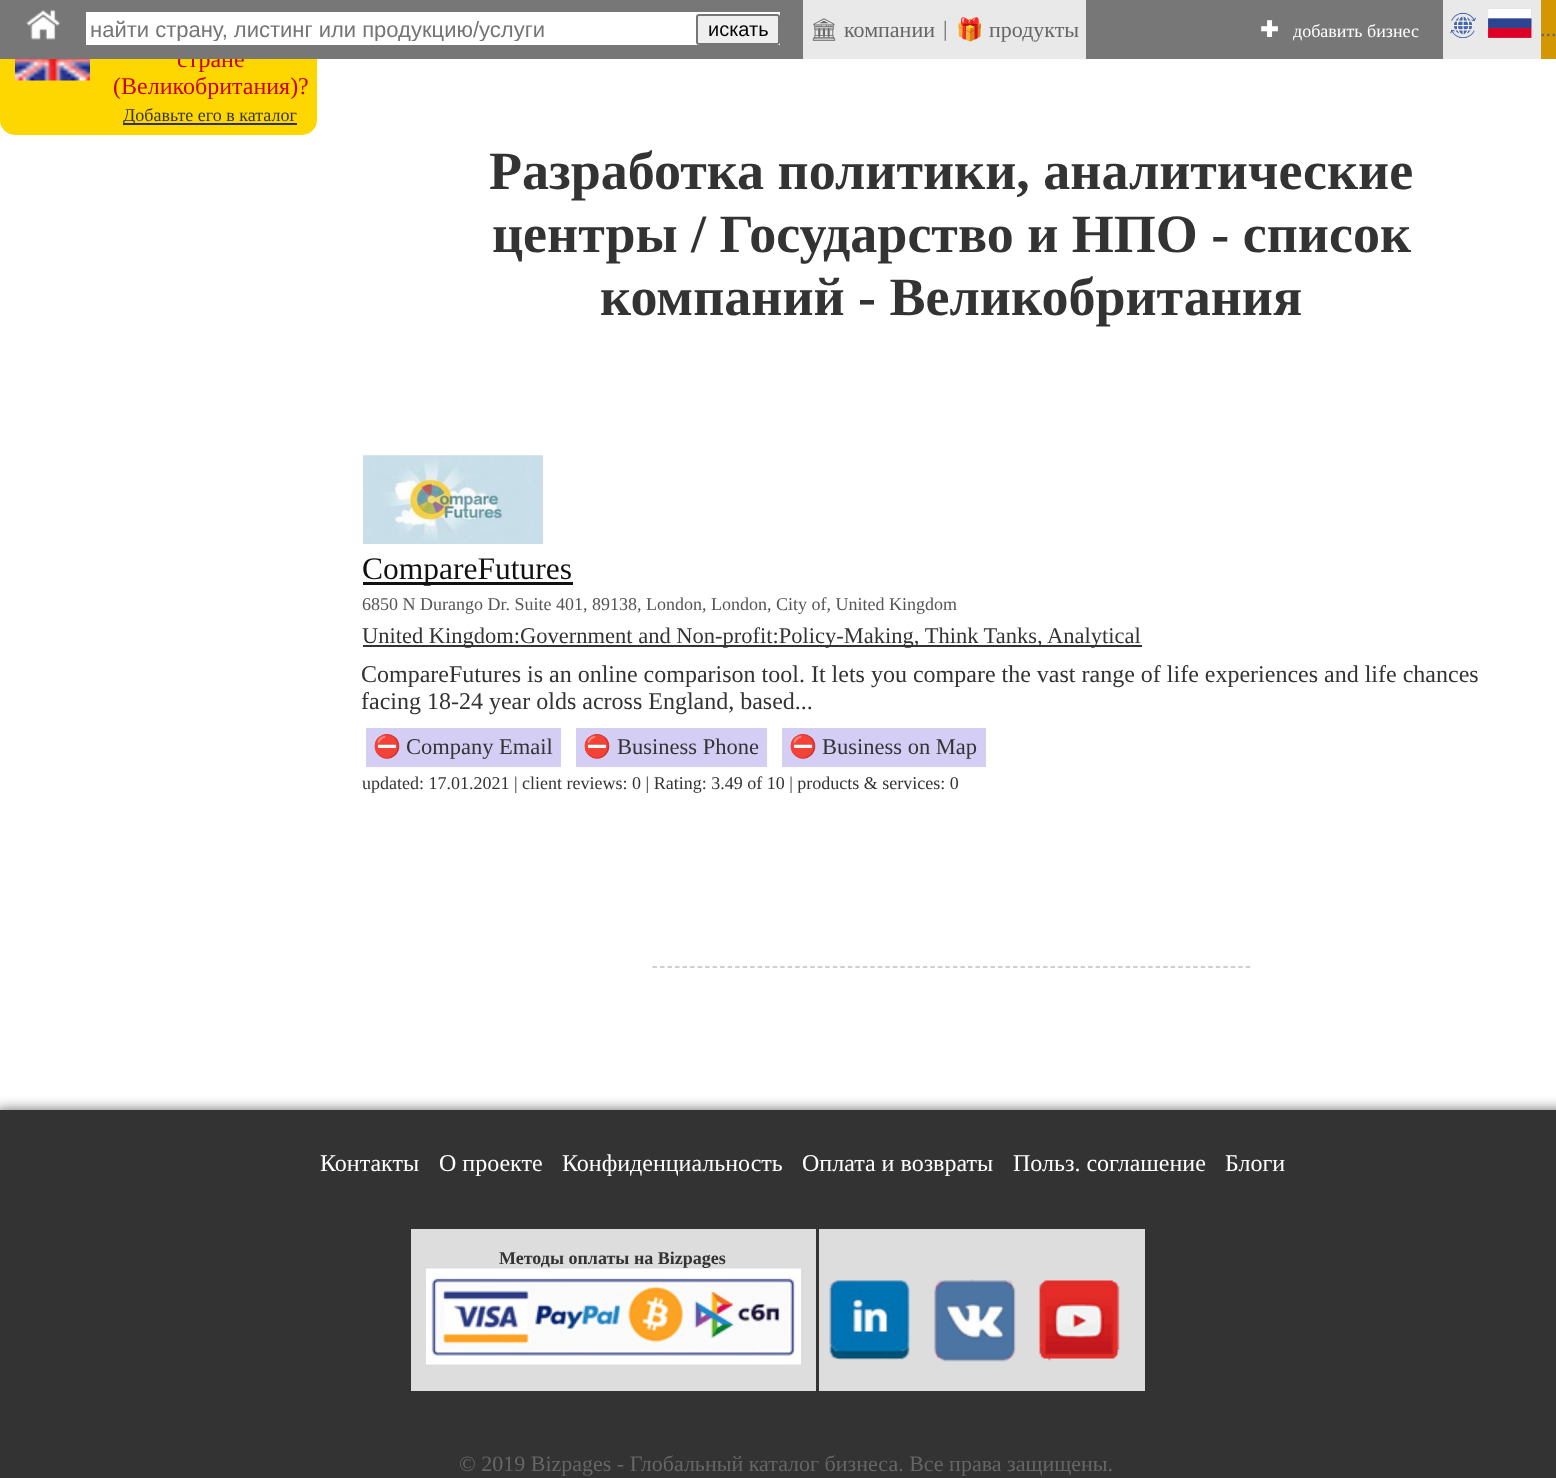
<!DOCTYPE html>
<meta charset="utf-8">
<style>body { margin: 0 } canvas { display: block }</style>
<canvas id="canvas" width="1556" height="1478"></canvas>
<img id="img1" src="images/2.png" hidden>
<img id="img2" src="images/3.png" hidden>
<img id="img3" src="images/4.png" hidden>
<img id="img4" src="images/5.png" hidden>
<img id="img5" src="images/6.png" hidden>
<img id="img6" src="images/7.png" hidden>
<img id="img7" src="images/8.png" hidden>
<img id="img8" src="images/9.png" hidden>
<img id="img9" src="images/1.png" hidden>
<script>
window.onload = function () {
    const canvas = document.getElementById('canvas');
    const context = canvas.getContext('2d');
    context.miterLimit = 4;
    context.fontKerning = 'normal';

    context.fillStyle = 'rgb(255, 255, 255)';
    context.fillRect(0, 0, 1556, 1478);
    context.fillStyle = 'rgb(233, 233, 233)';
    context.fillRect(1443, 0, 98, 59);
    context.drawImage(document.getElementById('img1'), 1450, 8, 82, 30);
    context.fillStyle = 'rgb(211, 151, 3)';
    context.fillRect(1541, 0, 15, 59);
    context.fillStyle = 'rgb(255, 215, 0)';
    context.beginPath();
    context.roundRect(0, -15, 317, 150, 15);
    context.fill();
    context.drawImage(document.getElementById('img2'), 15, 59, 75, 22);
    context.fillStyle = 'rgb(51, 51, 51)';
    context.fillRect(123, 123, 174, 2);
    context.drawImage(document.getElementById('img3'), 363, 455, 180, 89);
    context.drawImage(document.getElementById('img4'), 363, 455, 180, 1);
    context.fillStyle = 'rgb(17, 17, 17)';
    context.fillRect(363, 582, 210, 3);
    context.fillStyle = 'rgb(51, 51, 51)';
    context.fillRect(363, 645, 779, 2);
    context.fillStyle = 'rgb(212, 206, 245)';
    context.fillRect(366, 728, 195, 39);
    context.fillRect(576, 728, 191, 39);
    context.fillRect(782, 728, 204, 39);
    context.beginPath();
    context.moveTo(652.5, 967);
    context.lineTo(1251, 967);
    context.strokeStyle = 'rgb(192, 192, 192)';
    context.lineWidth = 1.5;
    context.setLineDash([4.5, 3.01]);
    context.stroke();
    context.fillStyle = 'rgb(102, 102, 102)';
    context.filter = 'blur(7px)';
    context.beginPath();
    context.rect(-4, 1110, 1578, 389);
    context.fill();
    context.filter = 'none';
    context.fillStyle = 'rgb(51, 51, 51)';
    context.fillRect(0, 1110, 1556, 368);
    context.fillStyle = 'rgb(221, 221, 221)';
    context.fillRect(411, 1229, 405, 162);
    context.drawImage(document.getElementById('img5'), 426, 1268, 375, 97);
    context.fillRect(819, 1229, 326, 162);
    context.drawImage(document.getElementById('img6'), 829, 1280, 81, 80);
    context.drawImage(document.getElementById('img7'), 934, 1279, 82, 83);
    context.drawImage(document.getElementById('img8'), 1039, 1280, 81, 81);
    context.font = '22px Liberation Serif';
    context.fillStyle = 'rgb(102, 102, 102)';
    context.fillText('...', 1540, 36);
    context.font = '24px Liberation Serif';
    context.fillStyle = 'rgb(204, 0, 0)';
    context.fillText('стране', 177, 67);
    context.fillStyle = 'rgb(119, 119, 119)';
    context.fillRect(0, 0, 1443, 59);
    context.fillStyle = 'rgb(233, 233, 233)';
    context.fillRect(803, 0, 283, 59);
    context.font = '22px Liberation Serif';
    context.fillStyle = 'rgb(102, 102, 102)';
    context.fillText('продукты', 989, 37);
    context.font = '22px Noto Color Emoji';
    context.fillText('🎁', 956, 37);
    context.font = '22px Liberation Serif';
    context.fillText('компании', 844, 37);
    context.font = '22px Noto Emoji';
    context.fillText('🏛', 810, 37);
    context.fillStyle = 'rgb(255, 255, 255)';
    context.fillRect(86, 12, 694, 33);
    context.fillStyle = 'rgb(239, 239, 239)';
    context.beginPath();
    context.roundRect(697, 15, 82, 29, 2);
    context.fill();
    context.strokeStyle = 'rgb(118, 118, 118)';
    context.lineWidth = 2;
    context.setLineDash([]);
    context.stroke();
    context.font = '20px Liberation Sans';
    context.fillStyle = 'rgb(0, 0, 0)';
    context.fillText('искать', 708, 36);
    context.font = '18px Liberation Serif';
    context.fillStyle = 'rgb(255, 255, 255)';
    context.fillText('добавить бизнес', 1293, 37);
    context.font = 'bold 22px DejaVu Sans';
    context.fillText('✚', 1260, 37);
    context.font = '22px Liberation Serif';
    context.fillStyle = 'rgb(102, 102, 102)';
    context.fillText('|', 943, 36);
    context.save();
    context.beginPath();
    context.rect(90, 17, 581, 24);
    context.clip();
    context.font = '22px Liberation Sans';
    context.fillStyle = 'rgb(117, 117, 117)';
    context.fillText('найти страну, листинг или продукцию/услуги', 90, 37);
    context.restore();
    context.drawImage(document.getElementById('img9'), 26, 10, 35, 30);
    context.font = '24px Liberation Serif';
    context.fillStyle = 'rgb(204, 0, 0)';
    context.fillText('(Великобритания)?', 113, 94);
    context.font = '18px Liberation Serif';
    context.fillStyle = 'rgb(51, 51, 51)';
    context.fillText('Добавьте его в каталог', 123, 121);
    context.font = 'bold 54px Liberation Serif';
    context.fillText('Разработка политики, аналитические', 489, 189);
    context.fillText('центры / Государство и НПО - список', 492, 252);
    context.fillText('компаний - Великобритания', 600, 315);
    context.font = '31.5px Liberation Serif';
    context.fillStyle = 'rgb(17, 17, 17)';
    context.fillText('CompareFutures', 362, 579);
    context.font = '18px Liberation Serif';
    context.fillStyle = 'rgb(85, 85, 85)';
    context.fillText('6850 N Durango Dr. Suite 401, 89138, London, London, City of, United Kingdom', 362, 610);
    context.font = '22.5px Liberation Serif';
    context.fillStyle = 'rgb(51, 51, 51)';
    context.fillText('United Kingdom:Government and Non-profit:Policy-Making, Think Tanks, Analytical', 362, 643);
    context.font = '24px Liberation Serif';
    context.fillText('CompareFutures is an online comparison tool. It lets you compare the vast range of life experiences and life chances', 361, 682);
    context.fillText('facing 18-24 year olds across England, based...', 361, 709);
    context.font = '22.5px Noto Color Emoji';
    context.fillText('⛔', 373, 754);
    context.font = '22.5px Liberation Serif';
    context.fillText('Company Email', 406, 754);
    context.font = '22.5px Noto Color Emoji';
    context.fillText('⛔', 583, 754);
    context.font = '22.5px Liberation Serif';
    context.fillText('Business Phone', 617, 754);
    context.font = '22.5px Noto Color Emoji';
    context.fillText('⛔', 789, 754);
    context.font = '22.5px Liberation Serif';
    context.fillText('Business on Map', 822, 754);
    context.font = '18px Liberation Serif';
    context.fillText('updated: 17.01.2021 | client reviews: 0 | Rating: 3.49 of 10 | products & services: 0', 362, 789);
    context.font = '24px Liberation Serif';
    context.fillStyle = 'rgb(255, 255, 255)';
    context.fillText('Контакты', 320, 1171);
    context.fillText('О проекте', 439, 1171);
    context.fillText('Конфиденциальность', 562, 1171);
    context.fillText('Оплата и возвраты', 802, 1171);
    context.fillText('Польз. соглашение', 1013, 1171);
    context.fillText('Блоги', 1225, 1171);
    context.font = 'bold 18px Liberation Serif';
    context.fillStyle = 'rgb(51, 51, 51)';
    context.fillText('Методы оплаты на Bizpages', 499, 1264);
    context.font = '22px Liberation Serif';
    context.fillStyle = 'rgb(102, 102, 102)';
    context.fillText('© 2019 Bizpages - Глобальный каталог бизнеса. Все права защищены.', 459, 1471);
};
</script>
